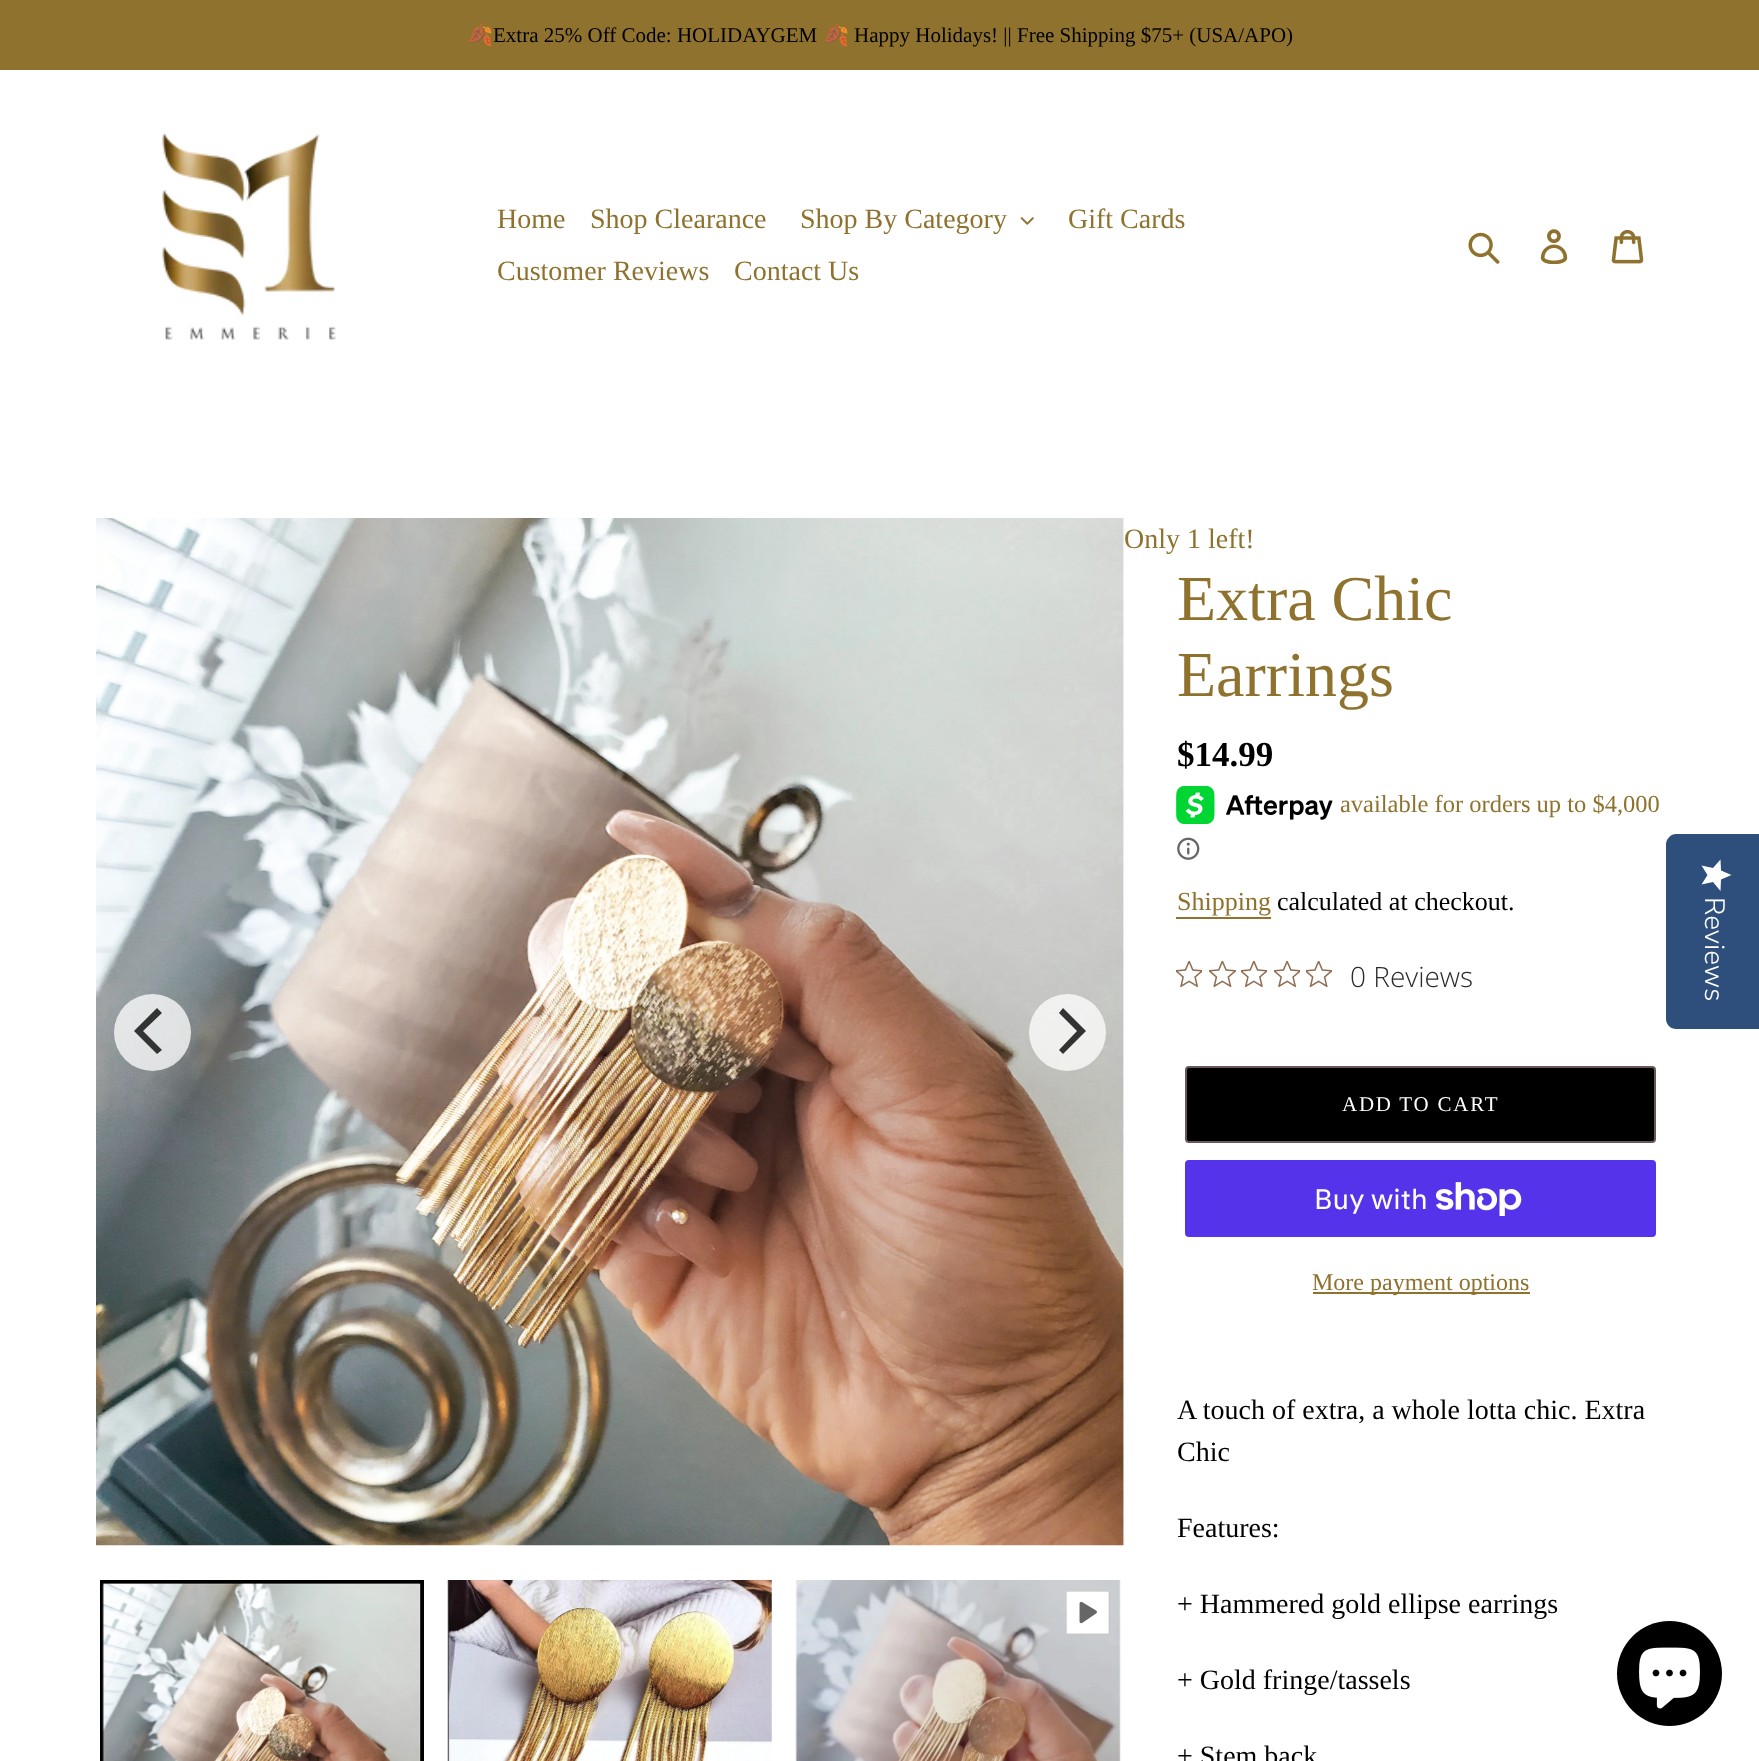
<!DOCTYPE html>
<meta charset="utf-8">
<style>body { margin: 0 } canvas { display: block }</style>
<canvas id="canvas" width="1759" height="1761"></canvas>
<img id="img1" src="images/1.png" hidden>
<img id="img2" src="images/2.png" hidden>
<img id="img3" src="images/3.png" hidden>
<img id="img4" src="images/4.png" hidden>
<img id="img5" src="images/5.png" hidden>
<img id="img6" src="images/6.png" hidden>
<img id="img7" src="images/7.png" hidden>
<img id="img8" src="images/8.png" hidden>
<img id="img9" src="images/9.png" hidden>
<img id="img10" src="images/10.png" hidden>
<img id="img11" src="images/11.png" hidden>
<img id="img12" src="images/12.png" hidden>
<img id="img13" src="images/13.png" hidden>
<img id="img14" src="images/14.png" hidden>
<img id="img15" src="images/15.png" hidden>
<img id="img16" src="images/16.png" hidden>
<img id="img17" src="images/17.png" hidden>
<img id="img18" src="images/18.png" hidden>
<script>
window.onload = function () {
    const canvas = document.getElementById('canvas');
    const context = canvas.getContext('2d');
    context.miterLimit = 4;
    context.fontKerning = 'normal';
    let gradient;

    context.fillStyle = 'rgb(255, 255, 255)';
    context.fillRect(0, 0, 1759, 1761);
    context.fillStyle = 'rgb(142, 114, 46)';
    context.fillRect(0, 0, 1759, 70);
    context.drawImage(document.getElementById('img1'), 162, 133, 175, 207);
    context.drawImage(document.getElementById('img2'), 1020, 217, 14, 8);
    context.drawImage(document.getElementById('img3'), 1468, 232, 32, 32);
    context.drawImage(document.getElementById('img4'), 1540, 229, 28, 35);
    context.drawImage(document.getElementById('img5'), 1611, 229, 33, 35);
    context.drawImage(document.getElementById('img6'), 96, 518, 1028, 1028);
    context.fillStyle = 'rgba(255, 255, 255, 0.75)';
    context.beginPath();
    context.arc(152.5, 1032.5, 38.5, 0, 2 * Math.PI);
    context.fill();
    context.fillStyle = 'rgb(51, 51, 51)';
    context.beginPath();
    context.moveTo(134, 1031);
    context.lineTo(157, 1054);
    context.lineTo(162, 1050);
    context.lineTo(143, 1031);
    context.lineTo(162, 1013);
    context.lineTo(157, 1008);
    context.closePath();
    context.fill();
    context.fillStyle = 'rgba(255, 255, 255, 0.75)';
    context.beginPath();
    context.arc(1067.5, 1032.5, 38.5, 0, 2 * Math.PI);
    context.fill();
    context.fillStyle = 'rgb(51, 51, 51)';
    context.beginPath();
    context.moveTo(1086, 1031);
    context.lineTo(1063, 1008);
    context.lineTo(1059, 1013);
    context.lineTo(1077, 1031);
    context.lineTo(1059, 1050);
    context.lineTo(1063, 1054);
    context.closePath();
    context.fill();
    context.strokeStyle = 'rgb(0, 0, 0)';
    context.lineWidth = 4;
    context.strokeRect(102, 1582, 320, 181);
    context.drawImage(document.getElementById('img7'), 102, 1583, 319, 178);
    context.drawImage(document.getElementById('img8'), 447, 1580, 325, 181);
    context.drawImage(document.getElementById('img9'), 795, 1580, 326, 181);
    context.drawImage(document.getElementById('img10'), 1066, 1591, 44, 44);
    context.drawImage(document.getElementById('img11'), 1176, 786, 157, 38);
    context.drawImage(document.getElementById('img12'), 1177, 837, 23, 23);
    context.fillStyle = 'rgb(142, 114, 46)';
    context.fillRect(1176, 917, 95, 2);
    context.drawImage(document.getElementById('img13'), 1176, 961, 26, 26);
    context.drawImage(document.getElementById('img14'), 1209, 961, 27, 26);
    context.drawImage(document.getElementById('img15'), 1241, 961, 26, 26);
    context.drawImage(document.getElementById('img13'), 1274, 961, 26, 26);
    context.drawImage(document.getElementById('img16'), 1306, 961, 26, 26);
    context.fillStyle = 'rgb(0, 0, 0)';
    context.beginPath();
    context.roundRect(1186, 1067, 469, 75, 3);
    context.fill();
    context.strokeStyle = 'rgb(104, 88, 88)';
    context.lineWidth = 2;
    context.stroke();
    context.fillStyle = 'rgb(84, 51, 235)';
    context.beginPath();
    context.roundRect(1185, 1160, 471, 77, 4);
    context.fill();
    context.drawImage(document.getElementById('img17'), 1436, 1182, 86, 34);
    context.fillStyle = 'rgb(142, 114, 46)';
    context.fillRect(1313, 1292, 217, 2);
    context.fillStyle = 'rgb(46, 79, 124)';
    context.beginPath();
    context.moveTo(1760, 834);
    context.lineTo(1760, 1029);
    context.lineTo(1676, 1029);
    context.bezierCurveTo(1671, 1029, 1666, 1025, 1666, 1019);
    context.lineTo(1666, 844);
    context.bezierCurveTo(1666, 839, 1671, 834, 1676, 834);
    context.closePath();
    context.fill();
    gradient = context.createLinearGradient(1732, 859, 1732, 891);
    gradient.addColorStop(1, 'rgb(255, 255, 255)');
    gradient.addColorStop(1, 'rgb(234, 234, 234)');
    context.fillStyle = gradient;
    context.beginPath();
    context.moveTo(1707.5, 875);
    context.lineTo(1701.5, 884.5);
    context.lineTo(1713, 882);
    context.lineTo(1720.5, 891);
    context.lineTo(1721, 879.5);
    context.lineTo(1731.5, 875);
    context.lineTo(1721, 870.5);
    context.lineTo(1720.5, 859.5);
    context.lineTo(1713, 868);
    context.lineTo(1701.5, 865.5);
    context.closePath();
    context.fill();
    context.fillStyle = 'rgb(0, 0, 0)';
    context.beginPath();
    context.arc(1669.5, 1673.5, 52.5, 0, 2 * Math.PI);
    context.fill();
    context.drawImage(document.getElementById('img18'), 1639, 1647, 61, 62);
    context.font = '21px Noto Color Emoji';
    context.fillText('🍂', 467, 42);
    context.font = '21px Liberation Serif';
    context.fillText('Extra 25% Off Code: HOLIDAYGEM', 493, 42);
    context.font = '21px Noto Color Emoji';
    context.fillText('🍂', 823, 42);
    context.font = '21px Liberation Serif';
    context.fillText('Happy Holidays! || Free Shipping $75+ (USA/APO)', 854, 42);
    context.font = '28px Liberation Serif';
    context.fillStyle = 'rgb(142, 114, 46)';
    context.fillText('Home', 497, 228);
    context.fillText('Shop Clearance', 590, 228);
    context.fillText('Shop By Category', 800, 228);
    context.fillText('Gift Cards', 1068, 228);
    context.fillText('Customer Reviews', 497, 280);
    context.fillText('Contact Us', 734, 280);
    context.fillText('Only 1 left!', 1124, 548);
    context.font = '64px Liberation Serif';
    context.fillText('Extra Chic', 1177, 620);
    context.fillText('Earrings', 1177, 696);
    context.font = 'bold 35px Liberation Serif';
    context.fillStyle = 'rgb(0, 0, 0)';
    context.fillText('$14.99', 1177, 766);
    context.font = '24.5px Liberation Serif';
    context.fillStyle = 'rgb(142, 114, 46)';
    context.fillText('available for orders up to $4,000', 1340, 812);
    context.font = '26px Liberation Serif';
    context.fillText('Shipping', 1177, 910);
    context.fillStyle = 'rgb(0, 0, 0)';
    context.fillText('calculated at checkout.', 1277, 910);
    context.font = '300 28px Open Sans';
    context.fillStyle = 'rgb(44, 44, 44)';
    context.fillText('0 Reviews', 1350, 987);
    context.letterSpacing = '1.75px';
    context.font = '21px Liberation Serif';
    context.fillStyle = 'rgb(255, 255, 255)';
    context.fillText('ADD TO CART', 1342, 1111);
    context.letterSpacing = '0px';
    context.font = '28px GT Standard';
    context.fillText('Buy with', 1314, 1209);
    context.font = '24px Liberation Serif';
    context.fillStyle = 'rgb(142, 114, 46)';
    context.fillText('More payment options', 1312, 1290);
    context.font = '28px Liberation Serif';
    context.fillStyle = 'rgb(0, 0, 0)';
    context.fillText('A touch of extra, a whole lotta chic. Extra', 1177, 1419);
    context.fillText('Chic', 1177, 1461);
    context.fillText('Features:', 1177, 1537);
    context.fillText('+ Hammered gold ellipse earrings', 1177, 1613);
    context.fillText('+ Gold fringe/tassels', 1177, 1689);
    context.fillText('+ Stem back', 1177, 1765);
    context.font = '300 28px Nunito Sans';
    context.fillStyle = 'rgb(255, 255, 255)';
    context.save();
    context.translate(1705, 897);
    context.rotate(90 * Math.PI / 180);
    context.fillText('Reviews', 0, 0);
    context.restore();
};
</script>
